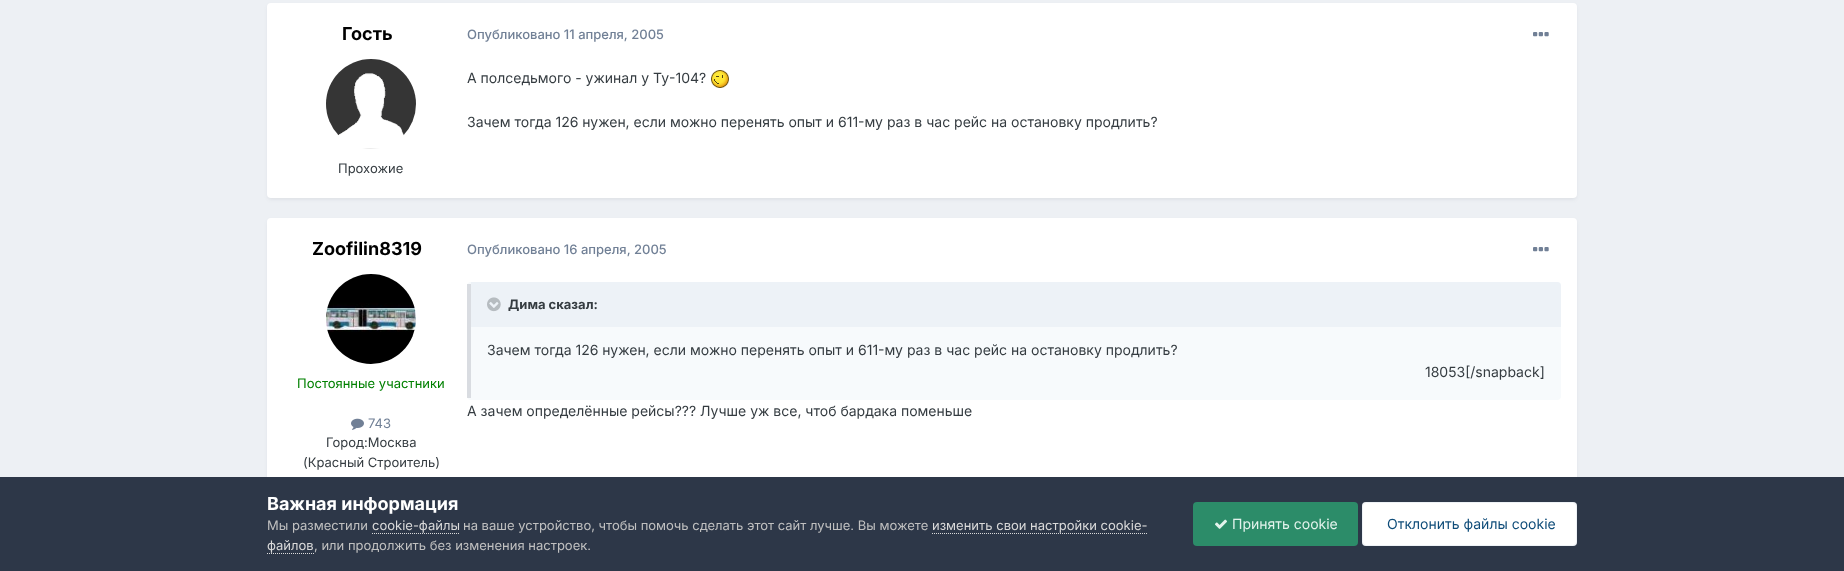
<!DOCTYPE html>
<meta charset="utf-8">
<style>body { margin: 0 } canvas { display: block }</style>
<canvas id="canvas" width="1844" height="571"></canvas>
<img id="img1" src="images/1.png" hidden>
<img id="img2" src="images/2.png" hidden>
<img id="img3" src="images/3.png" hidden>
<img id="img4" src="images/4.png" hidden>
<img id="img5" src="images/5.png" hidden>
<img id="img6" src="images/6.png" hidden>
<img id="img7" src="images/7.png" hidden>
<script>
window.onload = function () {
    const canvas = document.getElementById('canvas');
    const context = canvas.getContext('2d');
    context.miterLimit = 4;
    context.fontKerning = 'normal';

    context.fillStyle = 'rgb(237, 240, 244)';
    context.fillRect(0, 0, 1844, 571);
    context.fillStyle = 'rgba(45, 55, 72, 0.1)';
    context.filter = 'blur(2px)';
    context.beginPath();
    context.roundRect(268, 6, 1308, 193, 3);
    context.fill();
    context.filter = 'none';
    context.fillStyle = 'rgb(255, 255, 255)';
    context.beginPath();
    context.roundRect(267, 3, 1310, 195, 4);
    context.fill();
    context.drawImage(document.getElementById('img1'), 326, 59, 90, 90);
    context.drawImage(document.getElementById('img2'), 1533, 32, 16, 5);
    context.drawImage(document.getElementById('img3'), 711, 70, 18, 18);
    context.fillStyle = 'rgba(45, 55, 72, 0.1)';
    context.filter = 'blur(2px)';
    context.beginPath();
    context.roundRect(268, 221, 1308, 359, 3);
    context.fill();
    context.filter = 'none';
    context.fillStyle = 'rgb(255, 255, 255)';
    context.beginPath();
    context.roundRect(267, 218, 1310, 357, 4);
    context.fill();
    context.drawImage(document.getElementById('img4'), 326, 274, 90, 90);
    context.drawImage(document.getElementById('img5'), 351, 418, 13, 12);
    context.drawImage(document.getElementById('img2'), 1533, 247, 16, 5);
    context.fillStyle = 'rgb(247, 250, 252)';
    context.beginPath();
    context.roundRect(467, 282, 1094, 118, 4);
    context.fill();
    context.fillStyle = 'rgba(45, 55, 72, 0.15)';
    context.fillRect(467, 284, 4, 114);
    context.fillStyle = 'rgb(237, 242, 247)';
    context.beginPath();
    context.roundRect(471, 282, 1090, 45, [0, 4, 0, 0]);
    context.fill();
    context.drawImage(document.getElementById('img6'), 487, 297, 14, 15);
    context.fillStyle = 'rgb(45, 55, 72)';
    context.fillRect(0, 477, 1844, 94);
    context.beginPath();
    context.moveTo(372, 533.5);
    context.lineTo(460, 533.5);
    context.strokeStyle = 'rgb(218, 218, 218)';
    context.setLineDash([1, 1]);
    context.stroke();
    context.beginPath();
    context.moveTo(932, 533.5);
    context.lineTo(1148, 533.5);
    context.stroke();
    context.beginPath();
    context.moveTo(267, 553.5);
    context.lineTo(314, 553.5);
    context.stroke();
    context.fillStyle = 'rgb(44, 140, 105)';
    context.beginPath();
    context.roundRect(1193, 502, 165, 44, 4);
    context.fill();
    context.drawImage(document.getElementById('img7'), 1215, 519, 12, 10);
    context.fillStyle = 'rgb(255, 255, 255)';
    context.beginPath();
    context.roundRect(1362, 502, 215, 44, 4);
    context.fill();
    context.beginPath();
    context.roundRect(1362.5, 502.5, 214, 43, 3.5);
    context.strokeStyle = 'rgba(14, 76, 121, 0.07)';
    context.setLineDash([]);
    context.stroke();
    context.font = 'bold 18px Inter';
    context.fillStyle = 'rgb(0, 0, 0)';
    context.fillText('Гость', 342, 40);
    context.font = '13px Inter';
    context.fillStyle = 'rgb(53, 60, 65)';
    context.fillText('Прохожие', 338, 173);
    context.font = '500 13px Inter';
    context.fillStyle = 'rgb(113, 128, 150)';
    context.fillText('Опубликовано 11 апреля, 2005', 467, 39);
    context.font = '14px Inter';
    context.fillStyle = 'rgb(53, 60, 65)';
    context.fillText('А полседьмого - ужинал у Ту-104?', 467, 83);
    context.fillText('Зачем тогда 126 нужен, если можно перенять опыт и 611-му раз в час рейс на остановку продлить?', 467, 127);
    context.font = 'bold 18px Inter';
    context.fillStyle = 'rgb(0, 0, 0)';
    context.fillText('Zoofilin8319', 312, 255);
    context.font = '13px Inter';
    context.fillStyle = 'rgb(0, 128, 0)';
    context.fillText('Постоянные участники', 297, 388);
    context.fillStyle = 'rgb(113, 128, 150)';
    context.fillText('743', 368, 428);
    context.fillStyle = 'rgb(53, 60, 65)';
    context.fillText('Город:Москва', 326, 447);
    context.fillText('(Красный Строитель)', 303, 467);
    context.font = '500 13px Inter';
    context.fillStyle = 'rgb(113, 128, 150)';
    context.fillText('Опубликовано 16 апреля, 2005', 467, 254);
    context.font = 'bold 13px Inter';
    context.fillStyle = 'rgb(53, 60, 65)';
    context.fillText('Дима сказал:', 508, 309);
    context.font = '14px Inter';
    context.fillText('Зачем тогда 126 нужен, если можно перенять опыт и 611-му раз в час рейс на остановку продлить?', 487, 355);
    context.fillText('18053[/snapback]', 1425, 377);
    context.fillText('А зачем определённые рейсы??? Лучше уж все, чтоб бардака поменьше', 467, 416);
    context.font = 'bold 18px Inter';
    context.fillStyle = 'rgb(255, 255, 255)';
    context.fillText('Важная информация', 267, 510);
    context.font = '13px Inter';
    context.fillStyle = 'rgb(192, 192, 192)';
    context.fillText('Мы разместили', 267, 530);
    context.fillStyle = 'rgb(218, 218, 218)';
    context.fillText('cookie-файлы', 372, 530);
    context.fillStyle = 'rgb(192, 192, 192)';
    context.fillText('на ваше устройство, чтобы помочь сделать этот сайт лучше. Вы можете', 463, 530);
    context.fillStyle = 'rgb(218, 218, 218)';
    context.fillText('изменить свои настройки cookie-', 932, 530);
    context.fillText('файлов', 267, 550);
    context.fillStyle = 'rgb(192, 192, 192)';
    context.fillText(', или продолжить без изменения настроек.', 314, 550);
    context.font = '14px Inter';
    context.fillStyle = 'rgb(227, 243, 236)';
    context.fillText('Принять cookie', 1232, 529);
    context.fillStyle = 'rgb(14, 76, 121)';
    context.fillText('Отклонить файлы сookie', 1387, 529);
};
</script>
